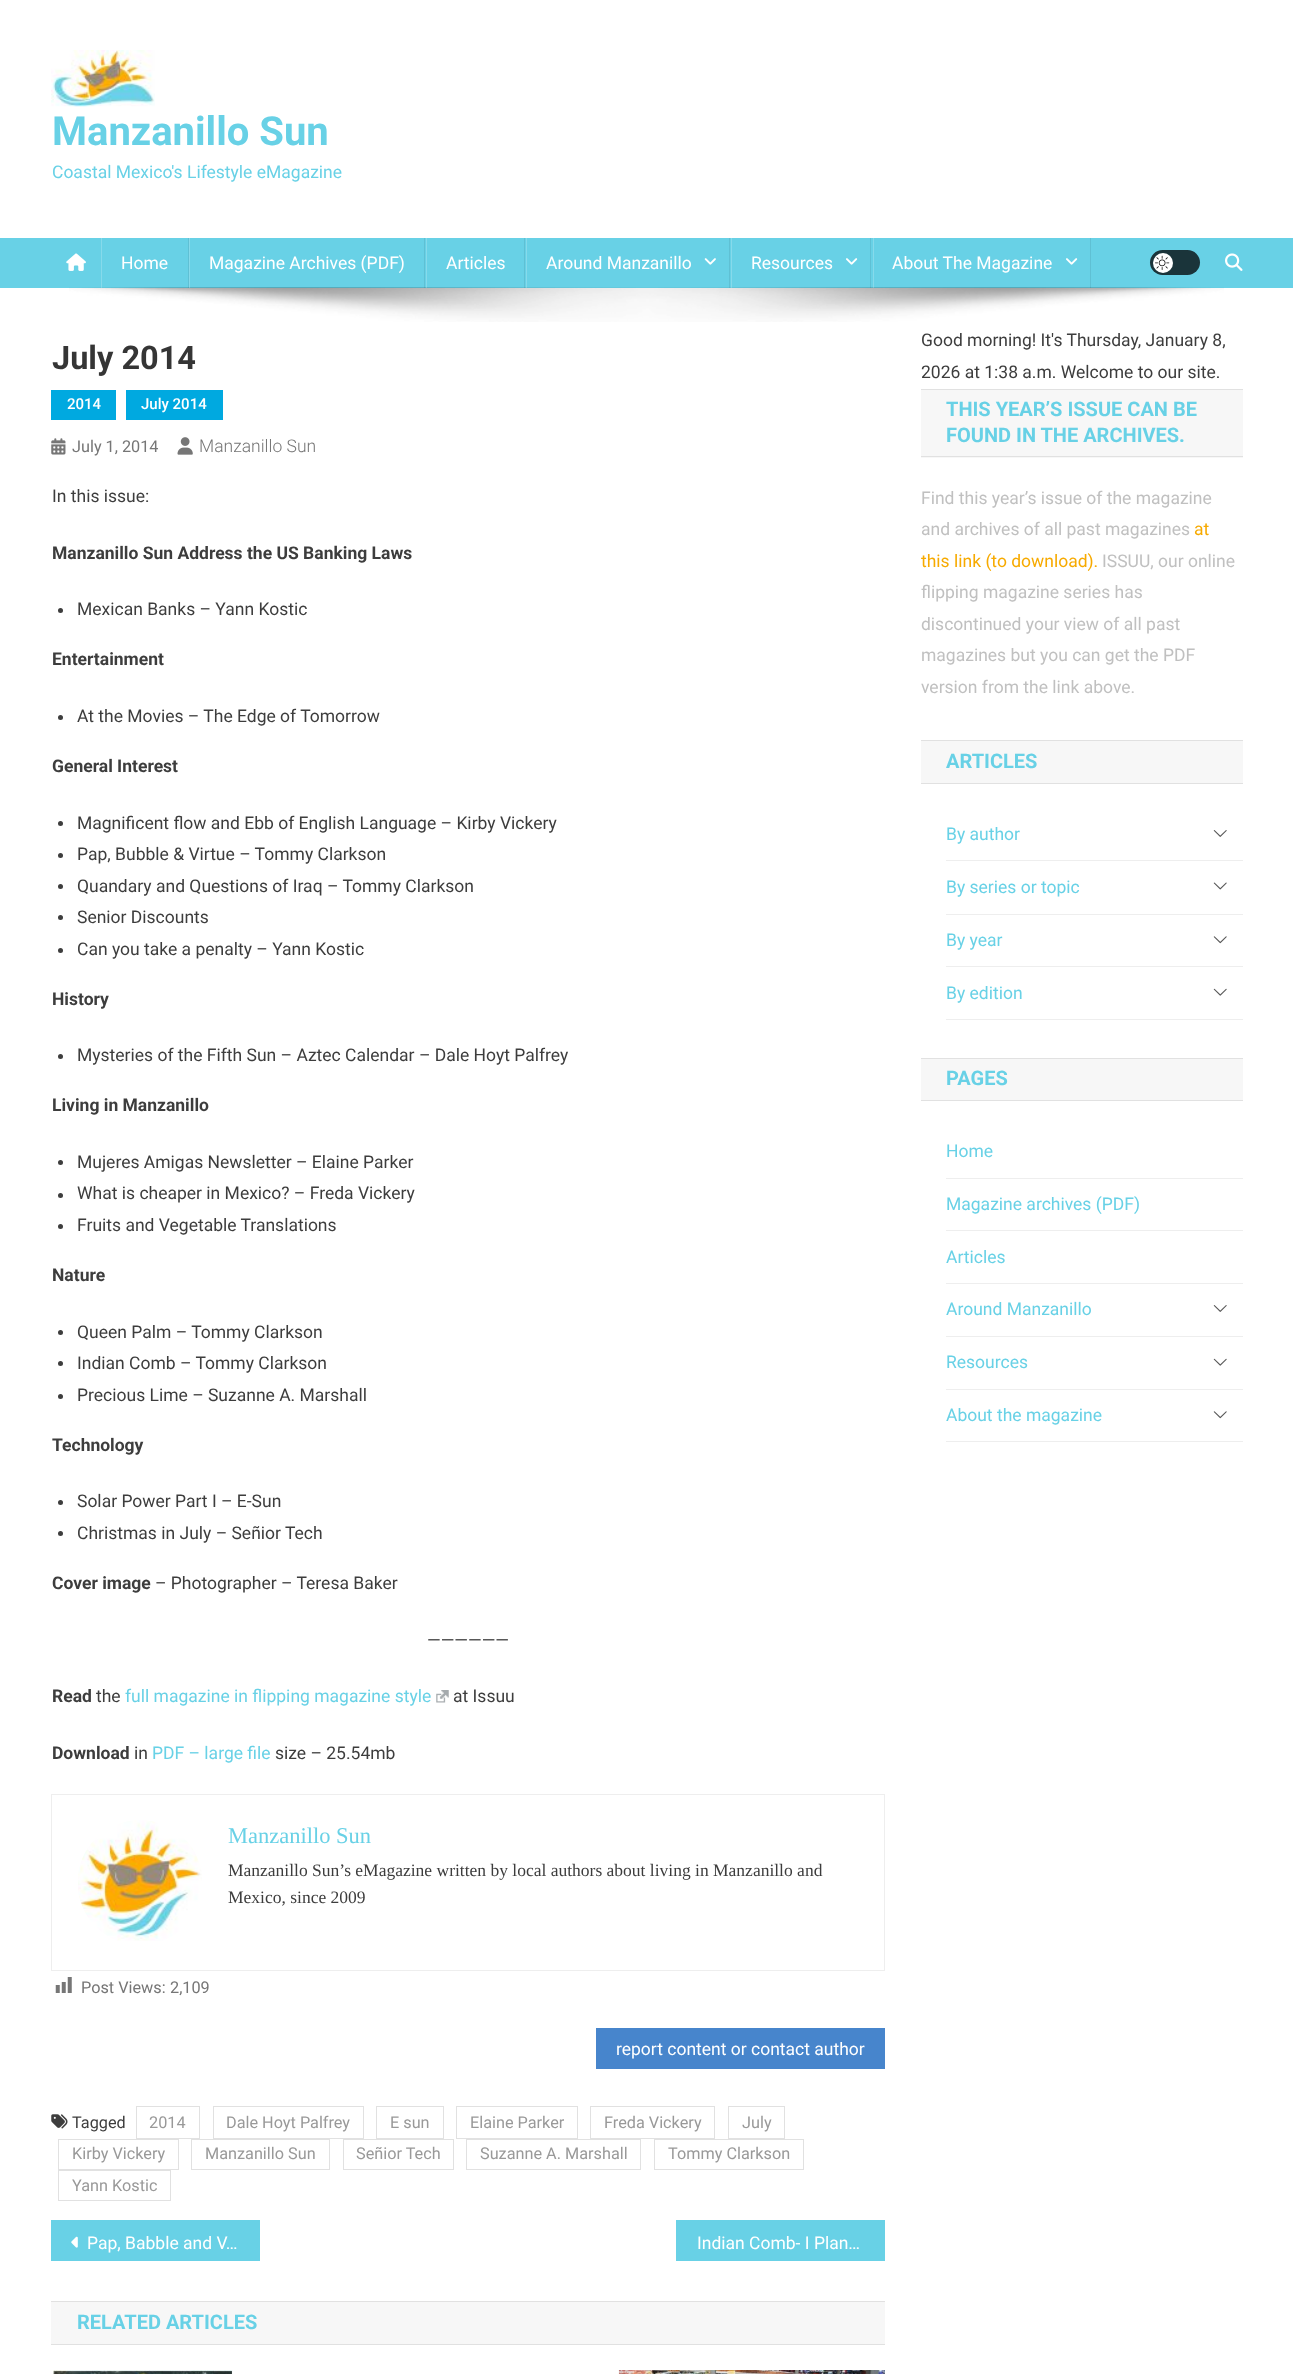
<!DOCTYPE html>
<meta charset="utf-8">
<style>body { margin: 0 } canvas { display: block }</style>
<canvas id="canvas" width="1293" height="2374"></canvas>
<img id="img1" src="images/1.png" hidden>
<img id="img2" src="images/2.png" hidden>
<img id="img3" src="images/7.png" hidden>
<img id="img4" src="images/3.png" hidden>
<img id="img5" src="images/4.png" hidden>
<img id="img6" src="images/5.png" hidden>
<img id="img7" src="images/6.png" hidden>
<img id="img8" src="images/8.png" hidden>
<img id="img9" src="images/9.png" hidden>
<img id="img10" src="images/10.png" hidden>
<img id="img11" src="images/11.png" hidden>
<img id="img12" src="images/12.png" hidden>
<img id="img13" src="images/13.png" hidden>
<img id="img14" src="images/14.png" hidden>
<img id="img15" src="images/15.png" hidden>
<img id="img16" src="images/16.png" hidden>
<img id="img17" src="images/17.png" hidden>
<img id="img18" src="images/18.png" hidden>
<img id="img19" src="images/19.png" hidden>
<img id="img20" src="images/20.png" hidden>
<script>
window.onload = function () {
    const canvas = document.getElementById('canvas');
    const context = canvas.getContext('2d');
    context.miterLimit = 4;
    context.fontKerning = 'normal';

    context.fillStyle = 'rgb(255, 255, 255)';
    context.fillRect(0, 0, 1293, 2374);
    context.drawImage(document.getElementById('img1'), 51, 50, 104, 57);
    context.fillStyle = 'rgb(104, 209, 230)';
    context.fillRect(0, 238, 1293, 50);
    context.drawImage(document.getElementById('img2'), 66, 253, 20, 18);
    context.drawImage(document.getElementById('img3'), 69, 287, 1155, 35);
    context.fillStyle = 'rgba(0, 0, 0, 0.08)';
    context.fillRect(188, 238, 1, 50);
    context.fillStyle = 'rgba(255, 255, 255, 0.2)';
    context.fillRect(101, 238, 1, 50);
    context.fillStyle = 'rgba(0, 0, 0, 0.08)';
    context.fillRect(424, 238, 1, 50);
    context.fillStyle = 'rgba(255, 255, 255, 0.2)';
    context.fillRect(189, 238, 1, 50);
    context.fillStyle = 'rgba(0, 0, 0, 0.08)';
    context.fillRect(524, 238, 1, 50);
    context.fillStyle = 'rgba(255, 255, 255, 0.2)';
    context.fillRect(426, 238, 1, 50);
    context.fillStyle = 'rgba(0, 0, 0, 0.08)';
    context.fillRect(729, 238, 1, 50);
    context.fillStyle = 'rgba(255, 255, 255, 0.2)';
    context.fillRect(526, 238, 1, 50);
    context.drawImage(document.getElementById('img4'), 704, 258, 12, 7);
    context.fillStyle = 'rgba(0, 0, 0, 0.08)';
    context.fillRect(870, 238, 1, 50);
    context.fillStyle = 'rgba(255, 255, 255, 0.2)';
    context.fillRect(731, 238, 1, 50);
    context.drawImage(document.getElementById('img5'), 846, 258, 12, 7);
    context.fillStyle = 'rgba(0, 0, 0, 0.08)';
    context.fillRect(1090, 238, 1, 50);
    context.fillStyle = 'rgba(255, 255, 255, 0.2)';
    context.fillRect(873, 238, 1, 50);
    context.drawImage(document.getElementById('img5'), 1066, 258, 12, 7);
    context.fillStyle = 'rgb(26, 52, 58)';
    context.beginPath();
    context.roundRect(1150, 250, 50, 25, 12.5);
    context.fill();
    context.fillStyle = 'rgb(255, 255, 255)';
    context.beginPath();
    context.arc(1163, 263, 10, 0, 2 * Math.PI);
    context.fill();
    context.drawImage(document.getElementById('img6'), 1155, 255, 15, 15);
    context.drawImage(document.getElementById('img7'), 1225, 253, 18, 18);
    context.fillStyle = 'rgb(0, 169, 224)';
    context.fillRect(51, 390, 65, 30);
    context.fillRect(126, 390, 97, 30);
    context.drawImage(document.getElementById('img8'), 51, 438, 15, 17);
    context.drawImage(document.getElementById('img9'), 177, 437, 16, 18);
    context.fillStyle = 'rgb(61, 61, 61)';
    context.beginPath();
    context.arc(60.5, 610.5, 2.5, 0, 2 * Math.PI);
    context.fill();
    context.beginPath();
    context.arc(60.5, 717.5, 2.5, 0, 2 * Math.PI);
    context.fill();
    context.beginPath();
    context.arc(60.5, 823.5, 2.5, 0, 2 * Math.PI);
    context.fill();
    context.beginPath();
    context.arc(60.5, 855.5, 2.5, 0, 2 * Math.PI);
    context.fill();
    context.beginPath();
    context.arc(60.5, 886.5, 2.5, 0, 2 * Math.PI);
    context.fill();
    context.beginPath();
    context.arc(60.5, 917.5, 2.5, 0, 2 * Math.PI);
    context.fill();
    context.beginPath();
    context.arc(60.5, 950.5, 2.5, 0, 2 * Math.PI);
    context.fill();
    context.beginPath();
    context.arc(60.5, 1056.5, 2.5, 0, 2 * Math.PI);
    context.fill();
    context.beginPath();
    context.arc(60.5, 1162.5, 2.5, 0, 2 * Math.PI);
    context.fill();
    context.beginPath();
    context.arc(60.5, 1195.5, 2.5, 0, 2 * Math.PI);
    context.fill();
    context.beginPath();
    context.arc(60.5, 1226.5, 2.5, 0, 2 * Math.PI);
    context.fill();
    context.beginPath();
    context.arc(60.5, 1332.5, 2.5, 0, 2 * Math.PI);
    context.fill();
    context.beginPath();
    context.arc(60.5, 1363.5, 2.5, 0, 2 * Math.PI);
    context.fill();
    context.beginPath();
    context.arc(60.5, 1396.5, 2.5, 0, 2 * Math.PI);
    context.fill();
    context.beginPath();
    context.arc(60.5, 1502.5, 2.5, 0, 2 * Math.PI);
    context.fill();
    context.beginPath();
    context.arc(60.5, 1533.5, 2.5, 0, 2 * Math.PI);
    context.fill();
    context.drawImage(document.getElementById('img10'), 436, 1690, 13, 13);
    context.strokeStyle = 'rgb(238, 238, 238)';
    context.strokeRect(51.5, 1794.5, 833, 176);
    context.drawImage(document.getElementById('img11'), 78, 1820, 124, 121);
    context.drawImage(document.getElementById('img12'), 55, 1977, 17, 16);
    context.fillStyle = 'rgb(71, 133, 204)';
    context.fillRect(596, 2028, 289, 41);
    context.drawImage(document.getElementById('img13'), 51, 2114, 17, 15);
    context.strokeStyle = 'rgb(225, 225, 225)';
    context.strokeRect(136.5, 2106.5, 63, 32);
    context.strokeRect(213.5, 2106.5, 150, 32);
    context.strokeRect(376.5, 2106.5, 67, 32);
    context.strokeRect(456.5, 2106.5, 121, 32);
    context.strokeRect(590.5, 2106.5, 124, 32);
    context.strokeRect(728.5, 2106.5, 56, 32);
    context.strokeRect(58.5, 2139.5, 120, 30);
    context.strokeRect(191.5, 2139.5, 138, 30);
    context.strokeRect(343.5, 2139.5, 110, 30);
    context.strokeRect(466.5, 2139.5, 174, 30);
    context.strokeRect(654.5, 2139.5, 149, 30);
    context.strokeRect(58.5, 2170.5, 112, 30);
    context.fillStyle = 'rgb(104, 209, 230)';
    context.fillRect(51, 2220, 209, 41);
    context.drawImage(document.getElementById('img14'), 71, 2236, 7, 12);
    context.fillRect(676, 2220, 209, 41);
    context.fillStyle = 'rgb(247, 247, 247)';
    context.fillRect(51, 2302, 834, 42);
    context.fillStyle = 'rgb(225, 225, 225)';
    context.fillRect(51, 2301, 834, 1);
    context.fillRect(51, 2344, 834, 1);
    context.drawImage(document.getElementById('img15'), 53, 2370, 180, 4);
    context.drawImage(document.getElementById('img16'), 618, 2370, 267, 4);
    context.fillStyle = 'rgb(247, 247, 247)';
    context.fillRect(921, 390, 322, 68);
    context.fillStyle = 'rgb(225, 225, 225)';
    context.fillRect(921, 389, 322, 1);
    context.fillRect(921, 456, 322, 1);
    context.fillStyle = 'rgb(247, 247, 247)';
    context.fillRect(921, 741, 322, 42);
    context.fillStyle = 'rgb(225, 225, 225)';
    context.fillRect(921, 740, 322, 1);
    context.fillRect(921, 783, 322, 1);
    context.fillStyle = 'rgb(238, 238, 238)';
    context.fillRect(946, 860, 297, 1);
    context.drawImage(document.getElementById('img17'), 1213, 830, 14, 7);
    context.fillRect(946, 914, 297, 1);
    context.drawImage(document.getElementById('img18'), 1213, 882, 14, 8);
    context.fillRect(946, 966, 297, 1);
    context.drawImage(document.getElementById('img19'), 1213, 936, 14, 8);
    context.fillRect(946, 1019, 297, 1);
    context.drawImage(document.getElementById('img20'), 1213, 988, 14, 8);
    context.fillStyle = 'rgb(247, 247, 247)';
    context.fillRect(921, 1059, 322, 41);
    context.fillStyle = 'rgb(225, 225, 225)';
    context.fillRect(921, 1058, 322, 1);
    context.fillRect(921, 1100, 322, 1);
    context.fillStyle = 'rgb(238, 238, 238)';
    context.fillRect(946, 1178, 297, 1);
    context.fillRect(946, 1230, 297, 1);
    context.fillRect(946, 1283, 297, 1);
    context.fillRect(946, 1336, 297, 1);
    context.drawImage(document.getElementById('img17'), 1213, 1305, 14, 7);
    context.fillRect(946, 1389, 297, 1);
    context.drawImage(document.getElementById('img20'), 1213, 1358, 14, 8);
    context.fillRect(946, 1441, 297, 1);
    context.drawImage(document.getElementById('img19'), 1213, 1411, 14, 8);
    context.font = 'bold 40px Roboto';
    context.fillStyle = 'rgb(104, 209, 230)';
    context.fillText('Manzanillo Sun', 52, 145);
    context.font = '17.5px Roboto';
    context.fillText('Coastal Mexico\'s Lifestyle eMagazine', 52, 178);
    context.fillStyle = 'rgb(255, 255, 255)';
    context.fillText('Home', 121, 269);
    context.fillText('Magazine Archives (PDF)', 209, 269);
    context.fillText('Articles', 446, 269);
    context.fillText('Around Manzanillo', 546, 269);
    context.fillText('Resources', 751, 269);
    context.fillText('About The Magazine', 892, 269);
    context.font = 'bold 32.5px Roboto';
    context.fillStyle = 'rgb(53, 53, 53)';
    context.fillText('July 2014', 52, 369);
    context.font = '500 15px Roboto';
    context.fillStyle = 'rgb(255, 255, 255)';
    context.fillText('2014', 67, 409);
    context.fillText('July 2014', 141, 409);
    context.font = '16.25px Roboto';
    context.fillStyle = 'rgb(118, 118, 118)';
    context.fillText('July 1, 2014', 72, 452);
    context.font = '300 17.5px Roboto';
    context.fillText('Manzanillo Sun', 199, 452);
    context.font = '17.5px Roboto';
    context.fillStyle = 'rgb(61, 61, 61)';
    context.fillText('In this issue:', 52, 502);
    context.font = 'bold 17.5px Roboto';
    context.fillText('Manzanillo Sun Address the US Banking Laws', 52, 559);
    context.font = '17.5px Roboto';
    context.fillText('Mexican Banks – Yann Kostic', 77, 615);
    context.font = 'bold 17.5px Roboto';
    context.fillText('Entertainment', 52, 665);
    context.font = '17.5px Roboto';
    context.fillText('At the Movies – The Edge of Tomorrow', 77, 722);
    context.font = 'bold 17.5px Roboto';
    context.fillText('General Interest', 52, 772);
    context.font = '17.5px Roboto';
    context.fillText('Magnificent flow and Ebb of English Language – Kirby Vickery', 77, 829);
    context.fillText('Pap, Bubble & Virtue – Tommy Clarkson', 77, 860);
    context.fillText('Quandary and Questions of Iraq – Tommy Clarkson', 77, 892);
    context.fillText('Senior Discounts', 77, 923);
    context.fillText('Can you take a penalty – Yann Kostic', 77, 955);
    context.font = 'bold 17.5px Roboto';
    context.fillText('History', 52, 1005);
    context.font = '17.5px Roboto';
    context.fillText('Mysteries of the Fifth Sun – Aztec Calendar – Dale Hoyt Palfrey', 77, 1061);
    context.font = 'bold 17.5px Roboto';
    context.fillText('Living in Manzanillo', 52, 1111);
    context.font = '17.5px Roboto';
    context.fillText('Mujeres Amigas Newsletter – Elaine Parker', 77, 1168);
    context.fillText('What is cheaper in Mexico? – Freda Vickery', 77, 1199);
    context.fillText('Fruits and Vegetable Translations', 77, 1231);
    context.font = 'bold 17.5px Roboto';
    context.fillText('Nature', 52, 1281);
    context.font = '17.5px Roboto';
    context.fillText('Queen Palm – Tommy Clarkson', 77, 1338);
    context.fillText('Indian Comb – Tommy Clarkson', 77, 1369);
    context.fillText('Precious Lime – Suzanne A. Marshall', 77, 1401);
    context.font = 'bold 17.5px Roboto';
    context.fillText('Technology', 52, 1451);
    context.font = '17.5px Roboto';
    context.fillText('Solar Power Part I – E-Sun', 77, 1507);
    context.fillText('Christmas in July – Señior Tech', 77, 1539);
    context.font = 'bold 17.5px Roboto';
    context.fillText('Cover image', 52, 1589);
    context.font = '17.5px Roboto';
    context.fillText('– Photographer – Teresa Baker', 155, 1589);
    context.fillText('——————', 427, 1646);
    context.font = 'bold 17.5px Roboto';
    context.fillText('Read', 52, 1702);
    context.font = '17.5px Roboto';
    context.fillText('the', 96, 1702);
    context.fillStyle = 'rgb(104, 209, 230)';
    context.fillText('full magazine in flipping magazine style', 125, 1702);
    context.fillStyle = 'rgb(61, 61, 61)';
    context.fillText('at Issuu', 453, 1702);
    context.font = 'bold 17.5px Roboto';
    context.fillText('Download', 52, 1759);
    context.font = '17.5px Roboto';
    context.fillText('in', 134, 1759);
    context.fillStyle = 'rgb(104, 209, 230)';
    context.fillText('PDF – large file', 152, 1759);
    context.fillStyle = 'rgb(61, 61, 61)';
    context.fillText('size – 25.54mb', 275, 1759);
    context.font = '22.5px Liberation Serif';
    context.fillStyle = 'rgb(104, 209, 230)';
    context.fillText('Manzanillo Sun', 228, 1843);
    context.font = '17.5px Liberation Serif';
    context.fillStyle = 'rgb(61, 61, 61)';
    context.fillText('Manzanillo Sun’s eMagazine written by local authors about living in Manzanillo and', 228, 1876);
    context.fillText('Mexico, since 2009', 228, 1903);
    context.font = '16.25px Roboto';
    context.fillStyle = 'rgb(118, 118, 118)';
    context.fillText('Post Views:', 81, 1993);
    context.fillText('2,109', 170, 1993);
    context.font = '17.5px Roboto';
    context.fillStyle = 'rgb(255, 255, 255)';
    context.fillText('report content or contact author', 616, 2055);
    context.font = '16.25px Roboto';
    context.fillStyle = 'rgb(61, 61, 61)';
    context.fillText('Tagged', 72, 2128);
    context.fillStyle = 'rgb(153, 153, 153)';
    context.fillText('2014', 149, 2128);
    context.fillText('Dale Hoyt Palfrey', 226, 2128);
    context.fillText('E sun', 390, 2128);
    context.fillText('Elaine Parker', 470, 2128);
    context.fillText('Freda Vickery', 604, 2128);
    context.fillText('July', 742, 2128);
    context.fillText('Kirby Vickery', 72, 2159);
    context.fillText('Manzanillo Sun', 205, 2159);
    context.fillText('Señior Tech', 356, 2159);
    context.fillText('Suzanne A. Marshall', 480, 2159);
    context.fillText('Tommy Clarkson', 668, 2159);
    context.fillText('Yann Kostic', 72, 2191);
    context.font = '17.5px Roboto';
    context.fillStyle = 'rgb(255, 255, 255)';
    context.fillText('Pap, Babble and V…', 87, 2249);
    context.fillText('Indian Comb- I Plan…', 697, 2249);
    context.font = 'bold 20px Roboto';
    context.fillStyle = 'rgb(104, 209, 230)';
    context.fillText('RELATED ARTICLES', 77, 2329);
    context.font = '17.5px Roboto';
    context.fillStyle = 'rgb(61, 61, 61)';
    context.fillText('Good morning! It\'s Thursday, January 8,', 921, 346);
    context.fillText('2026 at 1:38 a.m. Welcome to our site.', 921, 378);
    context.font = 'bold 20px Roboto';
    context.fillStyle = 'rgb(104, 209, 230)';
    context.fillText('THIS YEAR’S ISSUE CAN BE', 946, 416);
    context.fillText('FOUND IN THE ARCHIVES.', 946, 442);
    context.font = '17.5px Roboto';
    context.fillStyle = 'rgb(192, 192, 192)';
    context.fillText('Find this year’s issue of the magazine', 921, 504);
    context.fillText('and archives of all past magazines', 921, 535);
    context.fillStyle = 'rgb(247, 170, 0)';
    context.fillText('at', 1194, 535);
    context.fillText('this link (to download).', 921, 567);
    context.fillStyle = 'rgb(192, 192, 192)';
    context.fillText('ISSUU, our online', 1102, 567);
    context.fillText('flipping magazine series has', 921, 598);
    context.fillText('discontinued your view of all past', 921, 630);
    context.fillText('magazines but you can get the PDF', 921, 661);
    context.fillText('version from the link above.', 921, 693);
    context.font = 'bold 20px Roboto';
    context.fillStyle = 'rgb(104, 209, 230)';
    context.fillText('ARTICLES', 946, 768);
    context.font = '17.5px Roboto';
    context.fillText('By author', 946, 840);
    context.fillText('By series or topic', 946, 893);
    context.fillText('By year', 946, 946);
    context.fillText('By edition', 946, 999);
    context.font = 'bold 20px Roboto';
    context.fillText('PAGES', 946, 1085);
    context.font = '17.5px Roboto';
    context.fillText('Home', 946, 1157);
    context.fillText('Magazine archives (PDF)', 946, 1210);
    context.fillText('Articles', 946, 1263);
    context.fillText('Around Manzanillo', 946, 1315);
    context.fillText('Resources', 946, 1368);
    context.fillText('About the magazine', 946, 1421);
};
</script>
